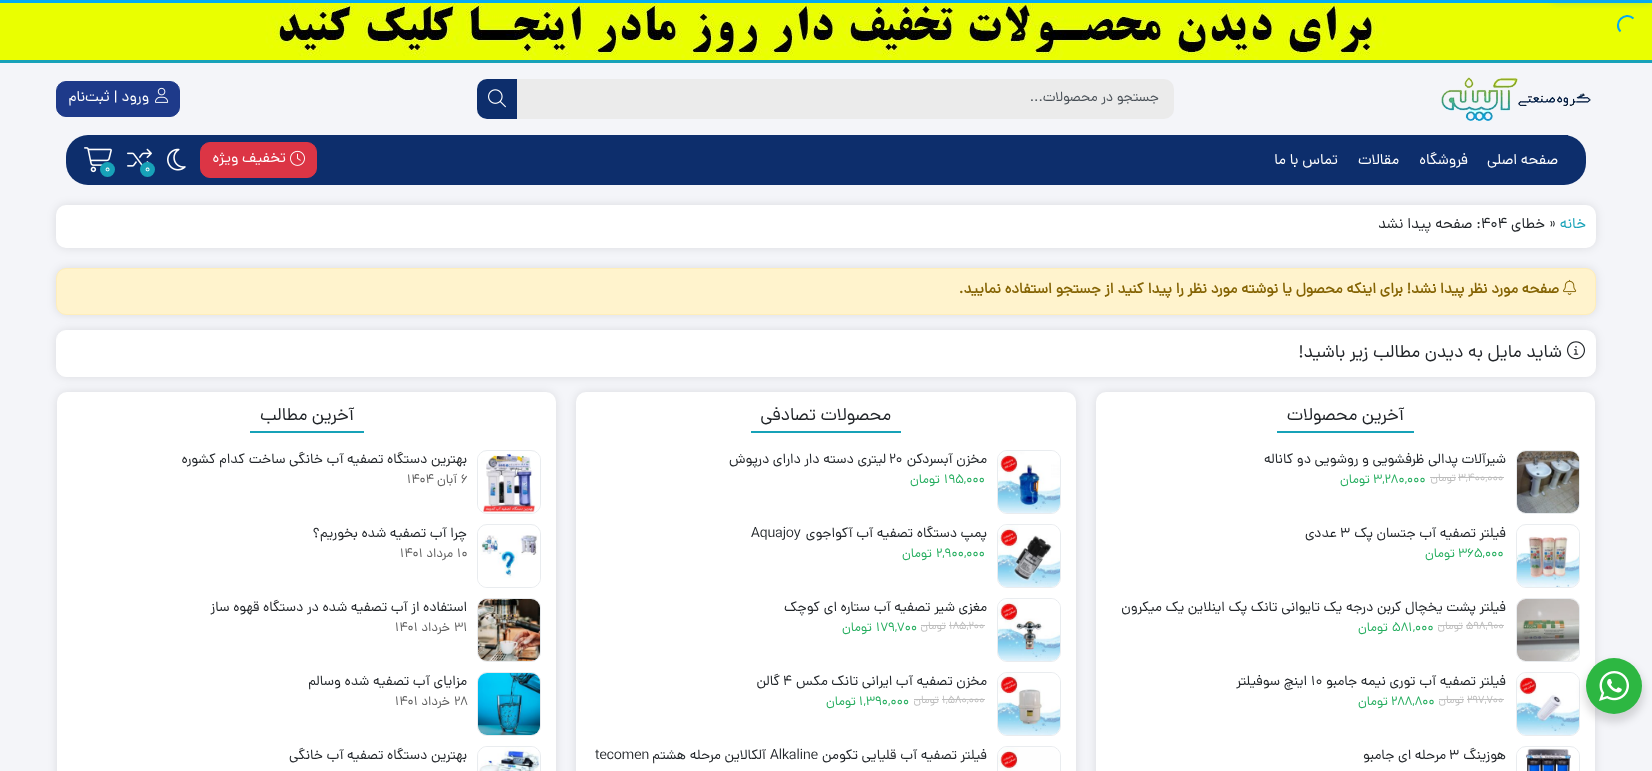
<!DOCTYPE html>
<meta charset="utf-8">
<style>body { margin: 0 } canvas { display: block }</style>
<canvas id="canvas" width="1652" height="771"></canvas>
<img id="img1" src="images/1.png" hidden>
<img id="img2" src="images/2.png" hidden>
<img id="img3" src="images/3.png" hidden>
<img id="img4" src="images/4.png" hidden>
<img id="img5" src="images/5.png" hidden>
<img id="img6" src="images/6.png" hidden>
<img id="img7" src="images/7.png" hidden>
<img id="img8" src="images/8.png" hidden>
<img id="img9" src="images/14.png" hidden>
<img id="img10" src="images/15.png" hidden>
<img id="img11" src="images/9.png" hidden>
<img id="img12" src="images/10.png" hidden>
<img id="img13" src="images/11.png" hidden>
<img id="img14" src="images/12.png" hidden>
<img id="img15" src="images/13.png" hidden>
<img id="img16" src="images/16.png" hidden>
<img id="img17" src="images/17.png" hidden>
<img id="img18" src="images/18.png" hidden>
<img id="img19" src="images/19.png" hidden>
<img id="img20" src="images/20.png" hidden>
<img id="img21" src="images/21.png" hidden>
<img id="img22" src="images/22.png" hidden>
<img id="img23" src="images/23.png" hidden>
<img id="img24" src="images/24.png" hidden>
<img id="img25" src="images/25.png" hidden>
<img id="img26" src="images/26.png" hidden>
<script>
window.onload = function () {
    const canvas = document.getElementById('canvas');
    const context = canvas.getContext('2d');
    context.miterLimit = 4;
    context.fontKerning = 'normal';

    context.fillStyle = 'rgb(244, 245, 249)';
    context.fillRect(0, 0, 1652, 771);
    context.fillStyle = 'rgb(3, 169, 244)';
    context.fillRect(0, 0, 1652, 3);
    context.drawImage(document.getElementById('img1'), 0, 3, 1652, 57);
    context.save();
    context.beginPath();
    context.moveTo(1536, 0);
    context.lineTo(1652, 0);
    context.lineTo(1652, 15);
    context.lineTo(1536, 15);
    context.closePath();
    context.moveTo(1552.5, -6.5);
    context.lineTo(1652, -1.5);
    context.lineTo(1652, 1.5);
    context.lineTo(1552, -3.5);
    context.closePath();
    context.clip('evenodd');
    context.fillStyle = 'rgb(34, 153, 221)';
    context.filter = 'blur(5px)';
    context.beginPath();
    context.rect(1552, -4, 100, 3);
    context.fill();
    context.filter = 'none';
    context.restore();
    context.beginPath();
    context.moveTo(1620.5, 31.5);
    context.bezierCurveTo(1612.5, 23, 1625, 10.5, 1633.5, 18.5);
    context.strokeStyle = 'rgb(3, 169, 244)';
    context.lineWidth = 2;
    context.stroke();
    context.fillStyle = 'rgb(23, 162, 184)';
    context.fillRect(0, 60, 1652, 3);
    context.drawImage(document.getElementById('img2'), 1441, 77, 150, 44);
    context.fillStyle = 'rgb(235, 235, 235)';
    context.beginPath();
    context.roundRect(517, 79, 657, 40, [0, 10, 10, 0]);
    context.fill();
    context.fillStyle = 'rgb(13, 46, 108)';
    context.beginPath();
    context.roundRect(477, 79, 40, 40, [10, 0, 0, 10]);
    context.fill();
    context.drawImage(document.getElementById('img3'), 488, 89, 18, 19);
    context.fillStyle = 'rgb(30, 58, 138)';
    context.beginPath();
    context.roundRect(56.5, 81.5, 123, 35, 9.5);
    context.fill();
    context.strokeStyle = 'rgb(30, 58, 138)';
    context.lineWidth = 1;
    context.stroke();
    context.drawImage(document.getElementById('img4'), 155, 87, 14, 16);
    context.fillStyle = 'rgb(13, 46, 108)';
    context.beginPath();
    context.roundRect(66, 135, 1520, 50, 22);
    context.fill();
    context.fillRect(1564, 135, 4, 1);
    context.fillStyle = 'rgb(220, 53, 69)';
    context.beginPath();
    context.roundRect(200.5, 142.5, 116, 35, 9.5);
    context.fill();
    context.strokeStyle = 'rgb(220, 53, 69)';
    context.stroke();
    context.drawImage(document.getElementById('img5'), 290, 150, 15, 16);
    context.drawImage(document.getElementById('img6'), 167, 148, 19, 23);
    context.drawImage(document.getElementById('img7'), 127, 148, 25, 19);
    context.fillStyle = 'rgb(23, 162, 184)';
    context.beginPath();
    context.arc(147.5, 169.5, 7.5, 0, 2 * Math.PI);
    context.fill();
    context.drawImage(document.getElementById('img8'), 84, 147, 28, 26);
    context.beginPath();
    context.arc(107.5, 169.5, 7.5, 0, 2 * Math.PI);
    context.fill();
    context.fillStyle = 'rgba(0, 0, 0, 0.1)';
    context.filter = 'blur(5px)';
    context.beginPath();
    context.roundRect(56, 268, 1540, 47, 10);
    context.fill();
    context.filter = 'none';
    context.fillStyle = 'rgb(255, 243, 205)';
    context.beginPath();
    context.roundRect(56.5, 268.5, 1539, 46, 9.5);
    context.fill();
    context.strokeStyle = 'rgb(255, 238, 186)';
    context.stroke();
    context.fillStyle = 'rgba(0, 0, 0, 0.1)';
    context.filter = 'blur(5px)';
    context.beginPath();
    context.roundRect(56, 330, 1540, 47, 10);
    context.fill();
    context.filter = 'none';
    context.fillStyle = 'rgb(255, 255, 255)';
    context.beginPath();
    context.roundRect(56.5, 330.5, 1539, 46, 9.5);
    context.fill();
    context.strokeStyle = 'rgb(255, 255, 255)';
    context.stroke();
    context.fillStyle = 'rgba(0, 0, 0, 0.1)';
    context.filter = 'blur(5px)';
    context.beginPath();
    context.roundRect(1096, 392, 499, 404, 10);
    context.fill();
    context.filter = 'none';
    context.fillStyle = 'rgb(255, 255, 255)';
    context.beginPath();
    context.roundRect(1096, 392, 499, 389, 10);
    context.fill();
    context.beginPath();
    context.roundRect(1516.5, 598.5, 63, 63, 9.5);
    context.strokeStyle = 'rgb(233, 236, 239)';
    context.stroke();
    context.drawImage(document.getElementById('img9'), 1517, 599, 62, 62);
    context.beginPath();
    context.roundRect(1516.5, 672.5, 63, 63, 9.5);
    context.stroke();
    context.drawImage(document.getElementById('img10'), 1517, 673, 62, 62);
    context.fillStyle = 'rgba(0, 0, 0, 0.14)';
    context.filter = 'blur(4px)';
    context.beginPath();
    context.roundRect(1584, 662, 60, 60, 30);
    context.fill();
    context.filter = 'none';
    context.fillStyle = 'rgb(45, 183, 66)';
    context.beginPath();
    context.arc(1614, 686, 28, 0, 2 * Math.PI);
    context.fill();
    context.drawImage(document.getElementById('img11'), 1599, 671, 30, 30);
    context.fillStyle = 'rgba(0, 0, 0, 0.1)';
    context.filter = 'blur(5px)';
    context.beginPath();
    context.roundRect(56, 205, 1540, 43, 10);
    context.fill();
    context.filter = 'none';
    context.fillStyle = 'rgb(255, 255, 255)';
    context.beginPath();
    context.roundRect(56, 205, 1540, 43, 10);
    context.fill();
    context.drawImage(document.getElementById('img12'), 1563, 279, 14, 16);
    context.drawImage(document.getElementById('img13'), 1567, 341, 18, 19);
    context.fillStyle = 'rgb(23, 162, 184)';
    context.fillRect(1277, 431, 137, 2);
    context.beginPath();
    context.roundRect(1516.5, 450.5, 63, 63, 9.5);
    context.stroke();
    context.drawImage(document.getElementById('img14'), 1517, 451, 62, 62);
    context.fillStyle = 'rgb(189, 189, 189)';
    context.fillRect(1458, 477, 46, 1);
    context.fillRect(1430, 477, 26, 1);
    context.beginPath();
    context.roundRect(1516.5, 524.5, 63, 63, 9.5);
    context.stroke();
    context.drawImage(document.getElementById('img15'), 1517, 531, 62, 56);
    context.fillRect(1466, 625, 38, 1);
    context.fillRect(1438, 625, 25, 1);
    context.fillRect(1467, 699, 37, 1);
    context.fillRect(1439, 699, 25, 1);
    context.beginPath();
    context.roundRect(1516.5, 746.5, 63, 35, 9.5);
    context.stroke();
    context.drawImage(document.getElementById('img16'), 1517, 748, 62, 23);
    context.fillStyle = 'rgba(0, 0, 0, 0.1)';
    context.filter = 'blur(5px)';
    context.beginPath();
    context.roundRect(576, 392, 500, 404, 10);
    context.fill();
    context.filter = 'none';
    context.fillStyle = 'rgb(255, 255, 255)';
    context.beginPath();
    context.roundRect(576, 392, 500, 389, 10);
    context.fill();
    context.fillStyle = 'rgb(23, 162, 184)';
    context.fillRect(751, 431, 150, 2);
    context.beginPath();
    context.roundRect(997.5, 450.5, 63, 63, 9.5);
    context.stroke();
    context.drawImage(document.getElementById('img17'), 998, 451, 62, 62);
    context.beginPath();
    context.roundRect(997.5, 524.5, 63, 63, 9.5);
    context.stroke();
    context.drawImage(document.getElementById('img18'), 998, 525, 62, 62);
    context.beginPath();
    context.roundRect(997.5, 598.5, 63, 63, 9.5);
    context.stroke();
    context.drawImage(document.getElementById('img19'), 998, 599, 62, 62);
    context.fillStyle = 'rgb(189, 189, 189)';
    context.fillRect(949, 625, 36, 1);
    context.fillRect(921, 625, 25, 1);
    context.beginPath();
    context.roundRect(997.5, 672.5, 63, 63, 9.5);
    context.stroke();
    context.drawImage(document.getElementById('img20'), 998, 673, 62, 62);
    context.fillRect(942, 699, 43, 1);
    context.fillRect(914, 699, 25, 1);
    context.beginPath();
    context.roundRect(997.5, 746.5, 63, 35, 9.5);
    context.stroke();
    context.drawImage(document.getElementById('img21'), 998, 747, 62, 24);
    context.fillStyle = 'rgba(0, 0, 0, 0.1)';
    context.filter = 'blur(5px)';
    context.beginPath();
    context.roundRect(57, 392, 499, 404, 10);
    context.fill();
    context.filter = 'none';
    context.fillStyle = 'rgb(255, 255, 255)';
    context.beginPath();
    context.roundRect(57, 392, 499, 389, 10);
    context.fill();
    context.fillStyle = 'rgb(23, 162, 184)';
    context.fillRect(250, 431, 114, 2);
    context.beginPath();
    context.roundRect(477.5, 450.5, 63, 63, 9.5);
    context.stroke();
    context.drawImage(document.getElementById('img22'), 478, 453, 62, 60);
    context.beginPath();
    context.roundRect(477.5, 524.5, 63, 63, 9.5);
    context.stroke();
    context.drawImage(document.getElementById('img23'), 478, 531, 62, 56);
    context.beginPath();
    context.roundRect(477.5, 598.5, 63, 63, 9.5);
    context.stroke();
    context.drawImage(document.getElementById('img24'), 478, 599, 62, 62);
    context.beginPath();
    context.roundRect(477.5, 672.5, 63, 63, 9.5);
    context.stroke();
    context.drawImage(document.getElementById('img25'), 478, 673, 62, 62);
    context.beginPath();
    context.roundRect(477.5, 746.5, 63, 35, 9.5);
    context.stroke();
    context.drawImage(document.getElementById('img26'), 478, 747, 62, 24);
    context.direction = 'rtl';
    context.font = '14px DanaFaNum';
    context.fillStyle = 'rgb(73, 80, 87)';
    context.fillText('جستجو در محصولات...', 1159, 101);
    context.font = '15px DanaFaNum';
    context.fillStyle = 'rgb(255, 255, 255)';
    context.fillText('ورود | ثبت‌نام', 149, 101);
    context.fillText('صفحه اصلی', 1558, 164);
    context.fillText('فروشگاه', 1468, 164);
    context.fillText('مقالات', 1399, 164);
    context.fillText('تماس با ما', 1338, 164);
    context.fillText('تخفیف ویژه', 286, 162);
    context.direction = 'ltr';
    context.font = '11px DanaFaNum';
    context.fillText('0', 145, 172);
    context.fillText('0', 105, 172);
    context.direction = 'rtl';
    context.font = '15px DanaFaNum';
    context.fillStyle = 'rgb(23, 162, 184)';
    context.fillText('خانه', 1586, 228);
    context.direction = 'ltr';
    context.fillStyle = 'rgb(33, 37, 41)';
    context.fillText('»', 1549, 228);
    context.direction = 'rtl';
    context.fillText('خطای', 1545, 228);
    context.direction = 'ltr';
    context.fillText('404', 1481, 228);
    context.direction = 'rtl';
    context.fillText(': صفحه پیدا نشد', 1481, 228);
    context.font = 'bold 15px DanaFaNum';
    context.fillStyle = 'rgb(133, 100, 4)';
    context.fillText('صفحه مورد نظر پیدا نشد! برای اینکه محصول یا نوشته مورد نظر را پیدا کنید از جستجو استفاده نمایید.', 1559, 293);
    context.font = '18px DanaFaNum';
    context.fillStyle = 'rgb(33, 37, 41)';
    context.fillText('شاید مایل به دیدن مطالب زیر باشید!', 1562, 357);
    context.fillText('آخرین محصولات', 1404, 420);
    context.font = '14px DanaFaNum';
    context.fillText('شیرآلات پدالی ظرفشویی و روشویی دو کاناله', 1506, 463);
    context.direction = 'ltr';
    context.font = '11px DanaFaNum';
    context.fillStyle = 'rgb(189, 189, 189)';
    context.fillText('3,400,000', 1458, 481);
    context.direction = 'rtl';
    context.fillText('تومان', 1456, 481);
    context.direction = 'ltr';
    context.font = '13px DanaFaNum';
    context.fillStyle = 'rgb(39, 174, 96)';
    context.fillText('3,280,000', 1373, 483);
    context.direction = 'rtl';
    context.fillText('تومان', 1370, 483);
    context.font = '14px DanaFaNum';
    context.fillStyle = 'rgb(33, 37, 41)';
    context.fillText('فیلتر تصفیه آب جتسان پک', 1506, 537);
    context.direction = 'ltr';
    context.fillText('3', 1340, 537);
    context.direction = 'rtl';
    context.fillText('عددی', 1337, 537);
    context.direction = 'ltr';
    context.font = '13px DanaFaNum';
    context.fillStyle = 'rgb(39, 174, 96)';
    context.fillText('365,000', 1458, 557);
    context.direction = 'rtl';
    context.fillText('تومان', 1455, 557);
    context.font = '14px DanaFaNum';
    context.fillStyle = 'rgb(33, 37, 41)';
    context.fillText('فیلتر پشت یخچال کربن درجه یک تایوانی تانک پک اینلاین یک میکرون', 1506, 611);
    context.direction = 'ltr';
    context.font = '11px DanaFaNum';
    context.fillStyle = 'rgb(189, 189, 189)';
    context.fillText('598,900', 1466, 629);
    context.direction = 'rtl';
    context.fillText('تومان', 1463, 629);
    context.direction = 'ltr';
    context.font = '13px DanaFaNum';
    context.fillStyle = 'rgb(39, 174, 96)';
    context.fillText('581,000', 1392, 631);
    context.direction = 'rtl';
    context.fillText('تومان', 1388, 631);
    context.font = '14px DanaFaNum';
    context.fillStyle = 'rgb(33, 37, 41)';
    context.fillText('فیلتر تصفیه آب توری نیمه جامبو', 1506, 685);
    context.direction = 'ltr';
    context.fillText('۱۰', 1311, 685);
    context.direction = 'rtl';
    context.fillText('اینچ سوفیلتر', 1307, 685);
    context.direction = 'ltr';
    context.font = '11px DanaFaNum';
    context.fillStyle = 'rgb(189, 189, 189)';
    context.fillText('297,700', 1467, 703);
    context.direction = 'rtl';
    context.fillText('تومان', 1464, 703);
    context.direction = 'ltr';
    context.font = '13px DanaFaNum';
    context.fillStyle = 'rgb(39, 174, 96)';
    context.fillText('288,800', 1391, 705);
    context.direction = 'rtl';
    context.fillText('تومان', 1388, 705);
    context.font = '14px DanaFaNum';
    context.fillStyle = 'rgb(33, 37, 41)';
    context.fillText('هوزینگ', 1506, 759);
    context.direction = 'ltr';
    context.fillText('۳', 1449, 759);
    context.direction = 'rtl';
    context.fillText('مرحله ای جامبو', 1446, 759);
    context.font = '18px DanaFaNum';
    context.fillText('محصولات تصادفی', 891, 420);
    context.font = '14px DanaFaNum';
    context.fillText('مخزن آبسردکن', 987, 463);
    context.direction = 'ltr';
    context.fillText('۲۰', 889, 463);
    context.direction = 'rtl';
    context.fillText('لیتری دسته دار دارای درپوش', 886, 463);
    context.direction = 'ltr';
    context.font = '13px DanaFaNum';
    context.fillStyle = 'rgb(39, 174, 96)';
    context.fillText('195,000', 944, 483);
    context.direction = 'rtl';
    context.fillText('تومان', 940, 483);
    context.font = '14px DanaFaNum';
    context.fillStyle = 'rgb(33, 37, 41)';
    context.fillText('پمپ دستگاه تصفیه آب آکواجوی', 987, 537);
    context.direction = 'ltr';
    context.fillText('Aquajoy', 751, 537);
    context.font = '13px DanaFaNum';
    context.fillStyle = 'rgb(39, 174, 96)';
    context.fillText('2,900,000', 936, 557);
    context.direction = 'rtl';
    context.fillText('تومان', 932, 557);
    context.font = '14px DanaFaNum';
    context.fillStyle = 'rgb(33, 37, 41)';
    context.fillText('مغزی شیر تصفیه آب ستاره ای کوچک', 987, 611);
    context.direction = 'ltr';
    context.font = '11px DanaFaNum';
    context.fillStyle = 'rgb(189, 189, 189)';
    context.fillText('185,200', 949, 629);
    context.direction = 'rtl';
    context.fillText('تومان', 946, 629);
    context.direction = 'ltr';
    context.font = '13px DanaFaNum';
    context.fillStyle = 'rgb(39, 174, 96)';
    context.fillText('179,700', 876, 631);
    context.direction = 'rtl';
    context.fillText('تومان', 872, 631);
    context.font = '14px DanaFaNum';
    context.fillStyle = 'rgb(33, 37, 41)';
    context.fillText('مخزن تصفیه آب ایرانی تانک مکس', 987, 685);
    context.direction = 'ltr';
    context.fillText('۴', 783, 685);
    context.direction = 'rtl';
    context.fillText('گالن', 780, 685);
    context.direction = 'ltr';
    context.font = '11px DanaFaNum';
    context.fillStyle = 'rgb(189, 189, 189)';
    context.fillText('1,580,000', 942, 703);
    context.direction = 'rtl';
    context.fillText('تومان', 939, 703);
    context.direction = 'ltr';
    context.font = '13px DanaFaNum';
    context.fillStyle = 'rgb(39, 174, 96)';
    context.fillText('1,390,000', 859, 705);
    context.direction = 'rtl';
    context.fillText('تومان', 856, 705);
    context.font = '14px DanaFaNum';
    context.fillStyle = 'rgb(33, 37, 41)';
    context.fillText('فیلتر تصفیه آب قلیایی تکومن', 987, 759);
    context.direction = 'ltr';
    context.fillText('Alkaline', 770, 759);
    context.direction = 'rtl';
    context.fillText('آلکالاین مرحله هشتم', 766, 759);
    context.direction = 'ltr';
    context.fillText('tecomen', 595, 759);
    context.direction = 'rtl';
    context.font = '18px DanaFaNum';
    context.fillText('آخرین مطالب', 354, 420);
    context.font = '14px DanaFaNum';
    context.fillText('بهترین دستگاه تصفیه آب خانگی ساخت کدام کشوره', 467, 463);
    context.direction = 'ltr';
    context.font = '13px DanaFaNum';
    context.fillStyle = 'rgb(97, 97, 97)';
    context.fillText('6', 461, 483);
    context.direction = 'rtl';
    context.fillText('آبان', 457, 483);
    context.direction = 'ltr';
    context.fillText('1404', 407, 483);
    context.direction = 'rtl';
    context.font = '14px DanaFaNum';
    context.fillStyle = 'rgb(33, 37, 41)';
    context.fillText('چرا آب تصفیه شده بخوریم؟', 467, 537);
    context.direction = 'ltr';
    context.font = '13px DanaFaNum';
    context.fillStyle = 'rgb(97, 97, 97)';
    context.fillText('10', 457, 557);
    context.direction = 'rtl';
    context.fillText('مرداد', 453, 557);
    context.direction = 'ltr';
    context.fillText('1401', 400, 557);
    context.direction = 'rtl';
    context.font = '14px DanaFaNum';
    context.fillStyle = 'rgb(33, 37, 41)';
    context.fillText('استفاده از آب تصفیه شده در دستگاه قهوه ساز', 467, 611);
    context.direction = 'ltr';
    context.font = '13px DanaFaNum';
    context.fillStyle = 'rgb(97, 97, 97)';
    context.fillText('31', 454, 631);
    context.direction = 'rtl';
    context.fillText('خرداد', 450, 631);
    context.direction = 'ltr';
    context.fillText('1401', 395, 631);
    context.direction = 'rtl';
    context.font = '14px DanaFaNum';
    context.fillStyle = 'rgb(33, 37, 41)';
    context.fillText('مزایای آب تصفیه شده وسالم', 467, 685);
    context.direction = 'ltr';
    context.font = '13px DanaFaNum';
    context.fillStyle = 'rgb(97, 97, 97)';
    context.fillText('28', 454, 705);
    context.direction = 'rtl';
    context.fillText('خرداد', 450, 705);
    context.direction = 'ltr';
    context.fillText('1401', 395, 705);
    context.direction = 'rtl';
    context.font = '14px DanaFaNum';
    context.fillStyle = 'rgb(33, 37, 41)';
    context.fillText('بهترین دستگاه تصفیه آب خانگی', 467, 759);
};
</script>
